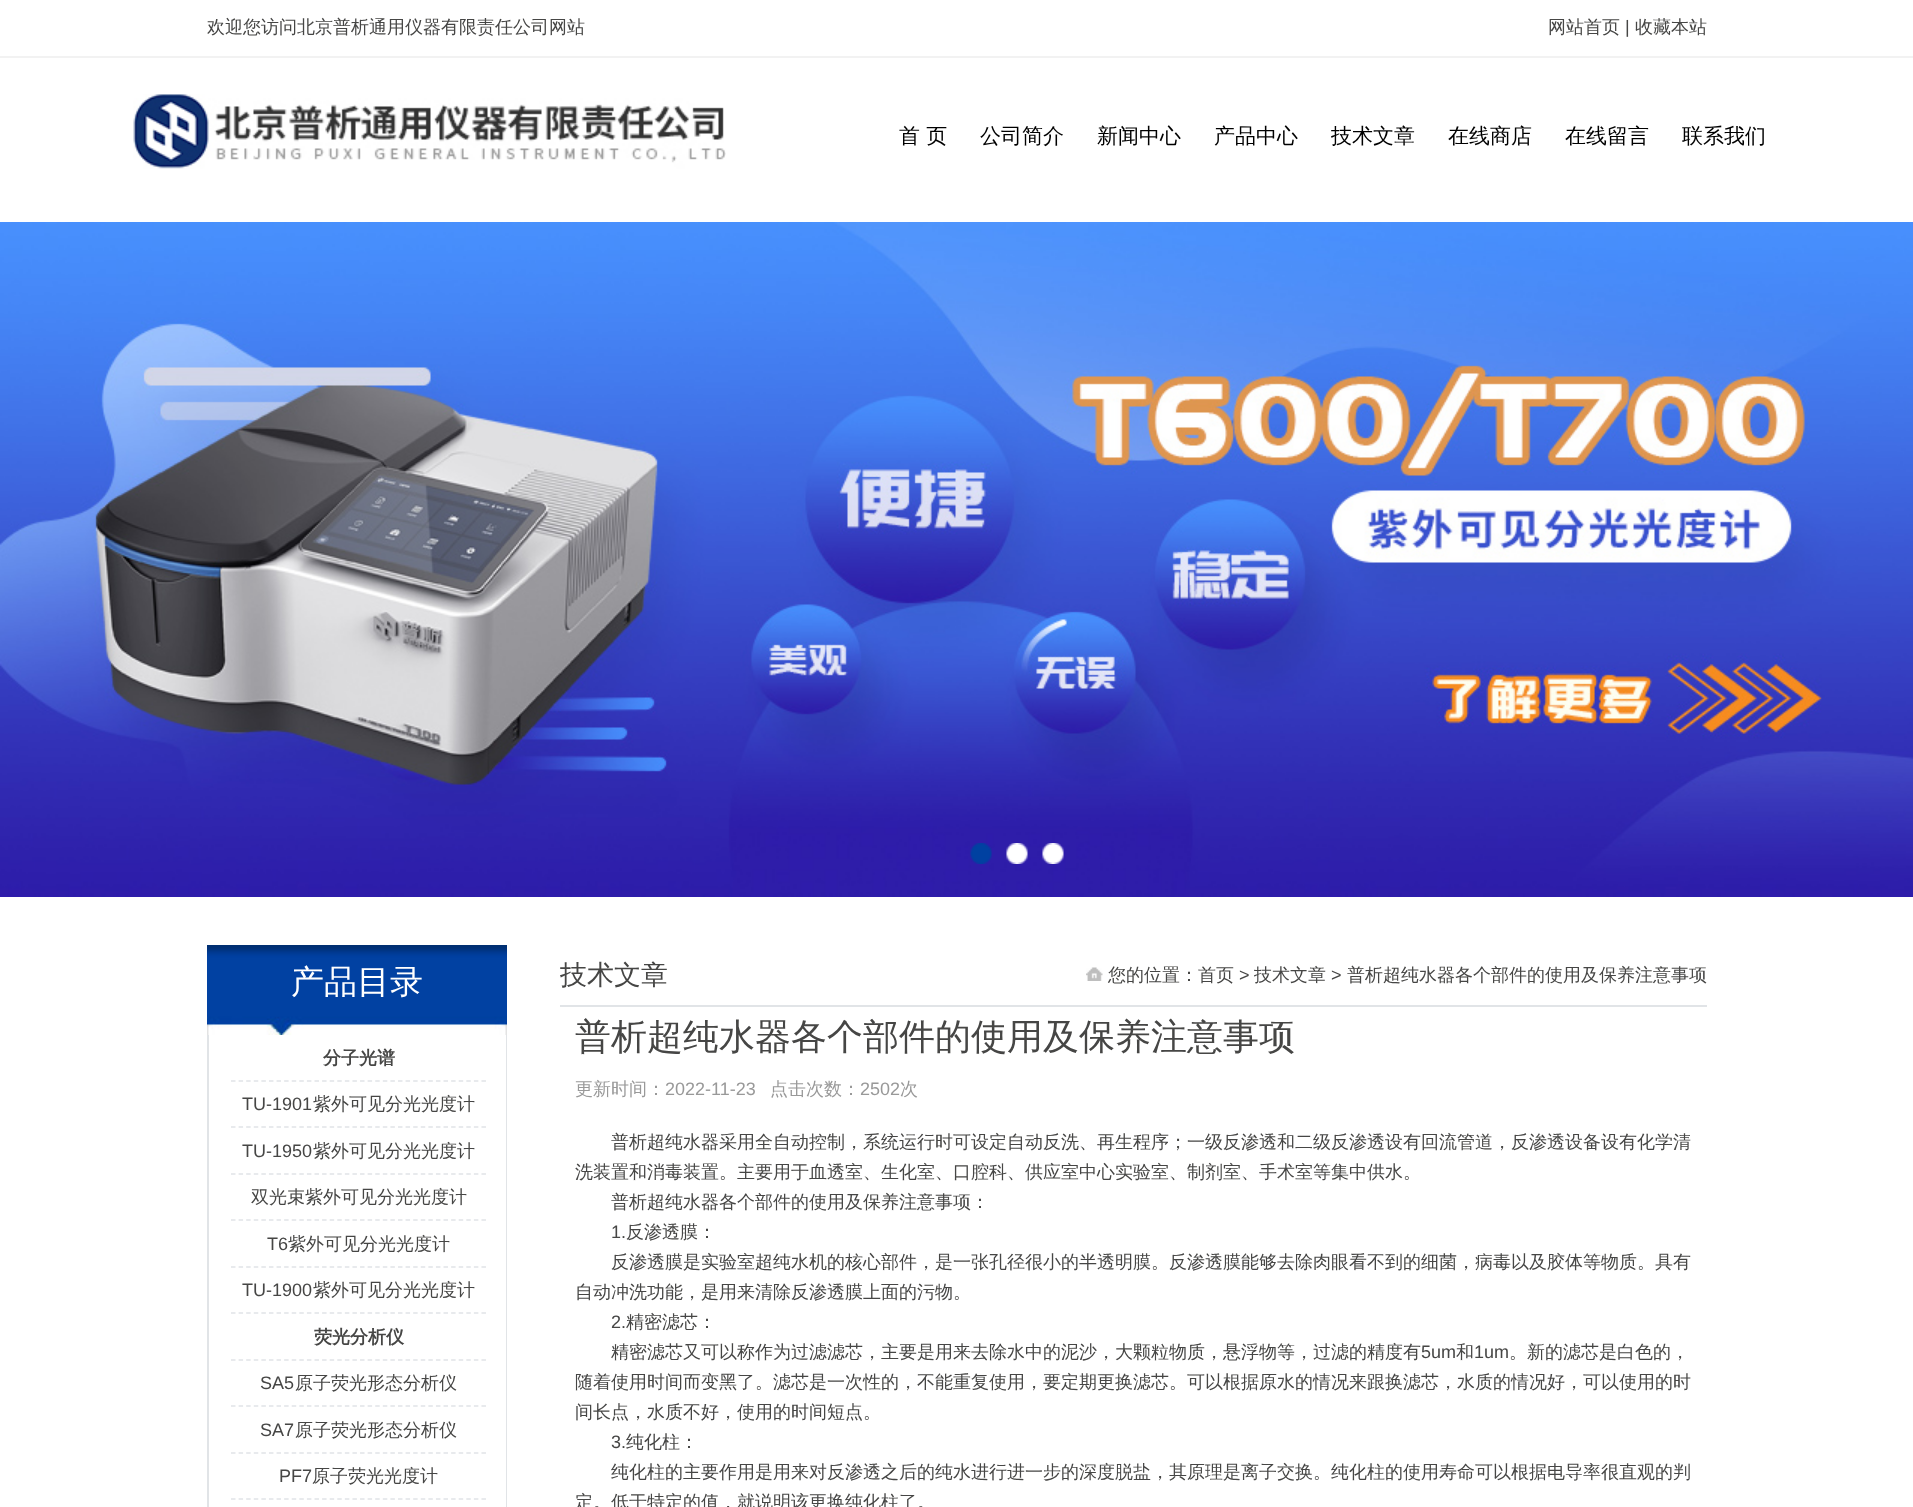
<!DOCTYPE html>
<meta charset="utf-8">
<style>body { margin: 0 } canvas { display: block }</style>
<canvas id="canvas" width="1913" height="1507"></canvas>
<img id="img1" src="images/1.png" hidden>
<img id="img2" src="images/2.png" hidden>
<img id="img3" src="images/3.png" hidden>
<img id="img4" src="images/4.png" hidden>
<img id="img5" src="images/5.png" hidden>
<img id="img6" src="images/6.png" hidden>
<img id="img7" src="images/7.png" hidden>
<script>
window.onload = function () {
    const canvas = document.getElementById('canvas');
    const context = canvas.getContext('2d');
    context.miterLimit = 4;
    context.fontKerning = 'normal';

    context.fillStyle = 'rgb(255, 255, 255)';
    context.fillRect(0, 0, 1913, 1507);
    context.fillStyle = 'rgb(242, 242, 242)';
    context.fillRect(0, 56, 1913, 2);
    context.drawImage(document.getElementById('img1'), 133, 94, 593, 75);
    context.drawImage(document.getElementById('img2'), 0, 222, 1913, 675);
    context.drawImage(document.getElementById('img3'), 970, 843, 22, 21);
    context.drawImage(document.getElementById('img4'), 1006, 843, 22, 21);
    context.drawImage(document.getElementById('img5'), 1042, 843, 22, 21);
    context.drawImage(document.getElementById('img6'), 207, 945, 300, 90);
    context.fillStyle = 'rgb(225, 228, 231)';
    context.fillRect(506, 1035, 1, 472);
    context.fillRect(207, 1035, 2, 472);
    context.beginPath();
    context.moveTo(231, 1081);
    context.lineTo(486, 1081);
    context.strokeStyle = 'rgb(225, 228, 231)';
    context.lineWidth = 1.5;
    context.setLineDash([4.5, 3.09]);
    context.stroke();
    context.beginPath();
    context.moveTo(231, 1127);
    context.lineTo(486, 1127);
    context.stroke();
    context.beginPath();
    context.moveTo(231, 1174);
    context.lineTo(486, 1174);
    context.stroke();
    context.beginPath();
    context.moveTo(231, 1220);
    context.lineTo(486, 1220);
    context.stroke();
    context.beginPath();
    context.moveTo(231, 1267);
    context.lineTo(486, 1267);
    context.stroke();
    context.beginPath();
    context.moveTo(231, 1313);
    context.lineTo(486, 1313);
    context.stroke();
    context.beginPath();
    context.moveTo(231, 1360);
    context.lineTo(486, 1360);
    context.stroke();
    context.beginPath();
    context.moveTo(231, 1406);
    context.lineTo(486, 1406);
    context.stroke();
    context.beginPath();
    context.moveTo(231, 1453);
    context.lineTo(486, 1453);
    context.stroke();
    context.beginPath();
    context.moveTo(231, 1499);
    context.lineTo(486, 1499);
    context.stroke();
    context.fillRect(560, 1005, 1147, 2);
    context.drawImage(document.getElementById('img7'), 1086, 967, 17, 14);
    context.font = '500 18px WenQuanYi Zen Hei';
    context.fillStyle = 'rgb(70, 70, 69)';
    context.fillText('欢迎您访问北京普析通用仪器有限责任公司网站', 207, 33);
    context.fillText('网站首页', 1548, 33);
    context.font = '18px Liberation Sans';
    context.fillText('|', 1625, 33);
    context.font = '500 18px WenQuanYi Zen Hei';
    context.fillText('收藏本站', 1635, 33);
    context.font = '500 21px WenQuanYi Zen Hei';
    context.fillStyle = 'rgb(0, 0, 0)';
    context.fillText('首 页', 899, 143);
    context.fillText('公司简介', 980, 143);
    context.fillText('新闻中心', 1097, 143);
    context.fillText('产品中心', 1214, 143);
    context.fillText('技术文章', 1331, 143);
    context.fillText('在线商店', 1448, 143);
    context.fillText('在线留言', 1565, 143);
    context.fillText('联系我们', 1682, 143);
    context.font = '500 33px WenQuanYi Zen Hei';
    context.fillStyle = 'rgb(255, 255, 255)';
    context.fillText('产品目录', 291, 993);
    context.font = 'bold 18px WenQuanYi Zen Hei';
    context.fillStyle = 'rgb(70, 70, 69)';
    context.fillText('分子光谱', 323, 1064);
    context.font = '18px Liberation Sans';
    context.fillText('TU-1901', 242, 1110);
    context.font = '500 18px WenQuanYi Zen Hei';
    context.fillText('紫外可见分光光度计', 313, 1110);
    context.font = '18px Liberation Sans';
    context.fillText('TU-1950', 242, 1157);
    context.font = '500 18px WenQuanYi Zen Hei';
    context.fillText('紫外可见分光光度计', 313, 1157);
    context.fillText('双光束紫外可见分光光度计', 251, 1203);
    context.font = '18px Liberation Sans';
    context.fillText('T6', 267, 1250);
    context.font = '500 18px WenQuanYi Zen Hei';
    context.fillText('紫外可见分光光度计', 288, 1250);
    context.font = '18px Liberation Sans';
    context.fillText('TU-1900', 242, 1296);
    context.font = '500 18px WenQuanYi Zen Hei';
    context.fillText('紫外可见分光光度计', 313, 1296);
    context.font = 'bold 18px WenQuanYi Zen Hei';
    context.fillText('荧光分析仪', 314, 1343);
    context.font = '18px Liberation Sans';
    context.fillText('SA5', 260, 1389);
    context.font = '500 18px WenQuanYi Zen Hei';
    context.fillText('原子荧光形态分析仪', 295, 1389);
    context.font = '18px Liberation Sans';
    context.fillText('SA7', 260, 1436);
    context.font = '500 18px WenQuanYi Zen Hei';
    context.fillText('原子荧光形态分析仪', 295, 1436);
    context.font = '18px Liberation Sans';
    context.fillText('PF7', 279, 1482);
    context.font = '500 18px WenQuanYi Zen Hei';
    context.fillText('原子荧光光度计', 312, 1482);
    context.font = '500 27px WenQuanYi Zen Hei';
    context.fillText('技术文章', 560, 984);
    context.font = '500 18px WenQuanYi Zen Hei';
    context.fillText('您的位置：', 1108, 981);
    context.fillText('首页', 1198, 981);
    context.font = '18px Liberation Sans';
    context.fillText('>', 1239, 981);
    context.font = '500 18px WenQuanYi Zen Hei';
    context.fillText('技术文章', 1254, 981);
    context.font = '18px Liberation Sans';
    context.fillText('>', 1331, 981);
    context.font = '500 18px WenQuanYi Zen Hei';
    context.fillText('普析超纯水器各个部件的使用及保养注意事项', 1347, 981);
    context.font = '500 36px WenQuanYi Zen Hei';
    context.fillText('普析超纯水器各个部件的使用及保养注意事项', 575, 1049);
    context.font = '500 18px WenQuanYi Zen Hei';
    context.fillStyle = 'rgb(153, 153, 153)';
    context.fillText('更新时间：', 575, 1095);
    context.font = '18px Liberation Sans';
    context.fillText('2022-11-23', 665, 1095);
    context.font = '500 18px WenQuanYi Zen Hei';
    context.fillText('点击次数：', 770, 1095);
    context.font = '18px Liberation Sans';
    context.fillText('2502', 860, 1095);
    context.font = '500 18px WenQuanYi Zen Hei';
    context.fillText('次', 900, 1095);
    context.fillStyle = 'rgb(70, 70, 69)';
    context.fillText('普析超纯水器采用全自动控制，系统运行时可设定自动反洗、再生程序；一级反渗透和二级反渗透设有回流管道，反渗透设备设有化学清', 611, 1148);
    context.fillText('洗装置和消毒装置。主要用于血透室、生化室、口腔科、供应室中心实验室、制剂室、手术室等集中供水。', 575, 1178);
    context.fillText('普析超纯水器各个部件的使用及保养注意事项：', 611, 1208);
    context.font = '18px Liberation Sans';
    context.fillText('1.', 611, 1238);
    context.font = '500 18px WenQuanYi Zen Hei';
    context.fillText('反渗透膜：', 626, 1238);
    context.fillText('反渗透膜是实验室超纯水机的核心部件，是一张孔径很小的半透明膜。反渗透膜能够去除肉眼看不到的细菌，病毒以及胶体等物质。具有', 611, 1268);
    context.fillText('自动冲洗功能，是用来清除反渗透膜上面的污物。', 575, 1298);
    context.font = '18px Liberation Sans';
    context.fillText('2.', 611, 1328);
    context.font = '500 18px WenQuanYi Zen Hei';
    context.fillText('精密滤芯：', 626, 1328);
    context.fillText('精密滤芯又可以称作为过滤滤芯，主要是用来去除水中的泥沙，大颗粒物质，悬浮物等，过滤的精度有', 611, 1358);
    context.font = '18px Liberation Sans';
    context.fillText('5um', 1421, 1358);
    context.font = '500 18px WenQuanYi Zen Hei';
    context.fillText('和', 1456, 1358);
    context.font = '18px Liberation Sans';
    context.fillText('1um', 1474, 1358);
    context.font = '500 18px WenQuanYi Zen Hei';
    context.fillText('。新的滤芯是白色的，', 1509, 1358);
    context.fillText('随着使用时间而变黑了。滤芯是一次性的，不能重复使用，要定期更换滤芯。可以根据原水的情况来跟换滤芯，水质的情况好，可以使用的时', 575, 1388);
    context.fillText('间长点，水质不好，使用的时间短点。', 575, 1418);
    context.font = '18px Liberation Sans';
    context.fillText('3.', 611, 1448);
    context.font = '500 18px WenQuanYi Zen Hei';
    context.fillText('纯化柱：', 626, 1448);
    context.fillText('纯化柱的主要作用是用来对反渗透之后的纯水进行进一步的深度脱盐，其原理是离子交换。纯化柱的使用寿命可以根据电导率很直观的判', 611, 1478);
    context.fillText('定。低于特定的值，就说明该更换纯化柱了。', 575, 1508);
};
</script>
